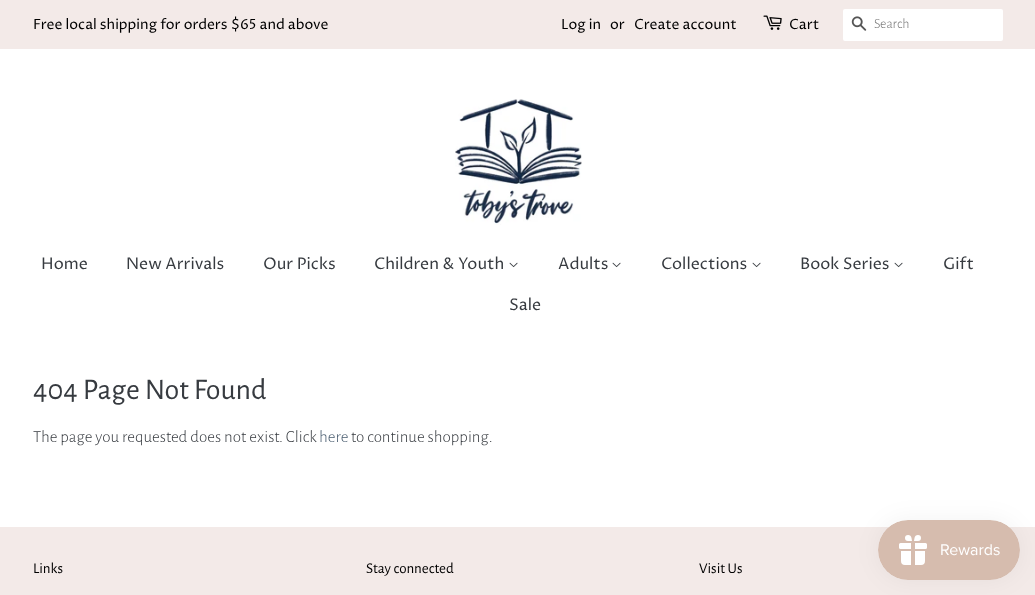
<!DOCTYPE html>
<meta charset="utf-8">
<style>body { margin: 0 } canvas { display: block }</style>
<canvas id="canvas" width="1035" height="595"></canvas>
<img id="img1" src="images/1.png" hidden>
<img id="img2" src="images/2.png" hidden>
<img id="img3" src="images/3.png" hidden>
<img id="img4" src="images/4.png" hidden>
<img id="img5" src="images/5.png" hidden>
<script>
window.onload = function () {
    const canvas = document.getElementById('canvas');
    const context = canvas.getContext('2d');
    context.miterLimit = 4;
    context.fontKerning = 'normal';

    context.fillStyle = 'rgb(255, 255, 255)';
    context.fillRect(0, 0, 1035, 595);
    context.fillStyle = 'rgb(243, 234, 232)';
    context.fillRect(0, 0, 1035, 49);
    context.drawImage(document.getElementById('img1'), 763, 15, 19, 15);
    context.fillStyle = 'rgb(255, 255, 255)';
    context.beginPath();
    context.roundRect(843, 9, 160, 32, 2);
    context.fill();
    context.drawImage(document.getElementById('img2'), 851, 16, 16, 15);
    context.drawImage(document.getElementById('img3'), 455, 99, 127, 126);
    context.drawImage(document.getElementById('img4'), 509, 262, 9, 6);
    context.drawImage(document.getElementById('img4'), 612, 262, 9, 6);
    context.drawImage(document.getElementById('img4'), 752, 262, 9, 6);
    context.drawImage(document.getElementById('img4'), 894, 262, 9, 6);
    context.fillStyle = 'rgb(243, 234, 232)';
    context.fillRect(0, 527, 1035, 68);
    context.fillStyle = 'rgba(0, 0, 0, 0.05)';
    context.filter = 'blur(12.5px)';
    context.beginPath();
    context.roundRect(878, 520, 142, 60, 30);
    context.fill();
    context.filter = 'none';
    context.drawImage(document.getElementById('img5'), 878, 520, 142, 60);
    context.font = '14px Proza Libre';
    context.fillStyle = 'rgb(0, 0, 0)';
    context.fillText('Free local shipping for orders $65 and above', 33, 29);
    context.fillText('Log in', 561, 29);
    context.fillText('or', 610, 29);
    context.fillText('Create account', 634, 29);
    context.fillText('Cart', 789, 29);
    context.font = '300 14px Alegreya Sans';
    context.fillStyle = 'rgb(117, 117, 117)';
    context.fillText('Search', 874, 28);
    context.font = '16px Proza Libre';
    context.fillStyle = 'rgb(55, 59, 64)';
    context.fillText('Home', 41, 269);
    context.fillText('New Arrivals', 126, 269);
    context.fillText('Our Picks', 263, 269);
    context.fillText('Children & Youth', 374, 269);
    context.fillText('Adults', 558, 269);
    context.fillText('Collections', 661, 269);
    context.fillText('Book Series', 800, 269);
    context.fillText('Gift', 943, 269);
    context.fillText('Sale', 509, 310);
    context.font = '30px Alegreya Sans';
    context.fillText('404 Page Not Found', 33, 399);
    context.font = '300 17px Alegreya Sans';
    context.fillText('The page you requested does not exist. Click', 33, 442);
    context.fillStyle = 'rgb(73, 92, 111)';
    context.fillText('here', 319, 442);
    context.fillStyle = 'rgb(55, 59, 64)';
    context.fillText('to continue shopping.', 351, 442);
    context.font = '15px Alegreya Sans';
    context.fillStyle = 'rgb(0, 0, 0)';
    context.fillText('Links', 33, 573);
    context.fillText('Stay connected', 366, 573);
    context.fillText('Visit Us', 699, 573);
};
</script>
